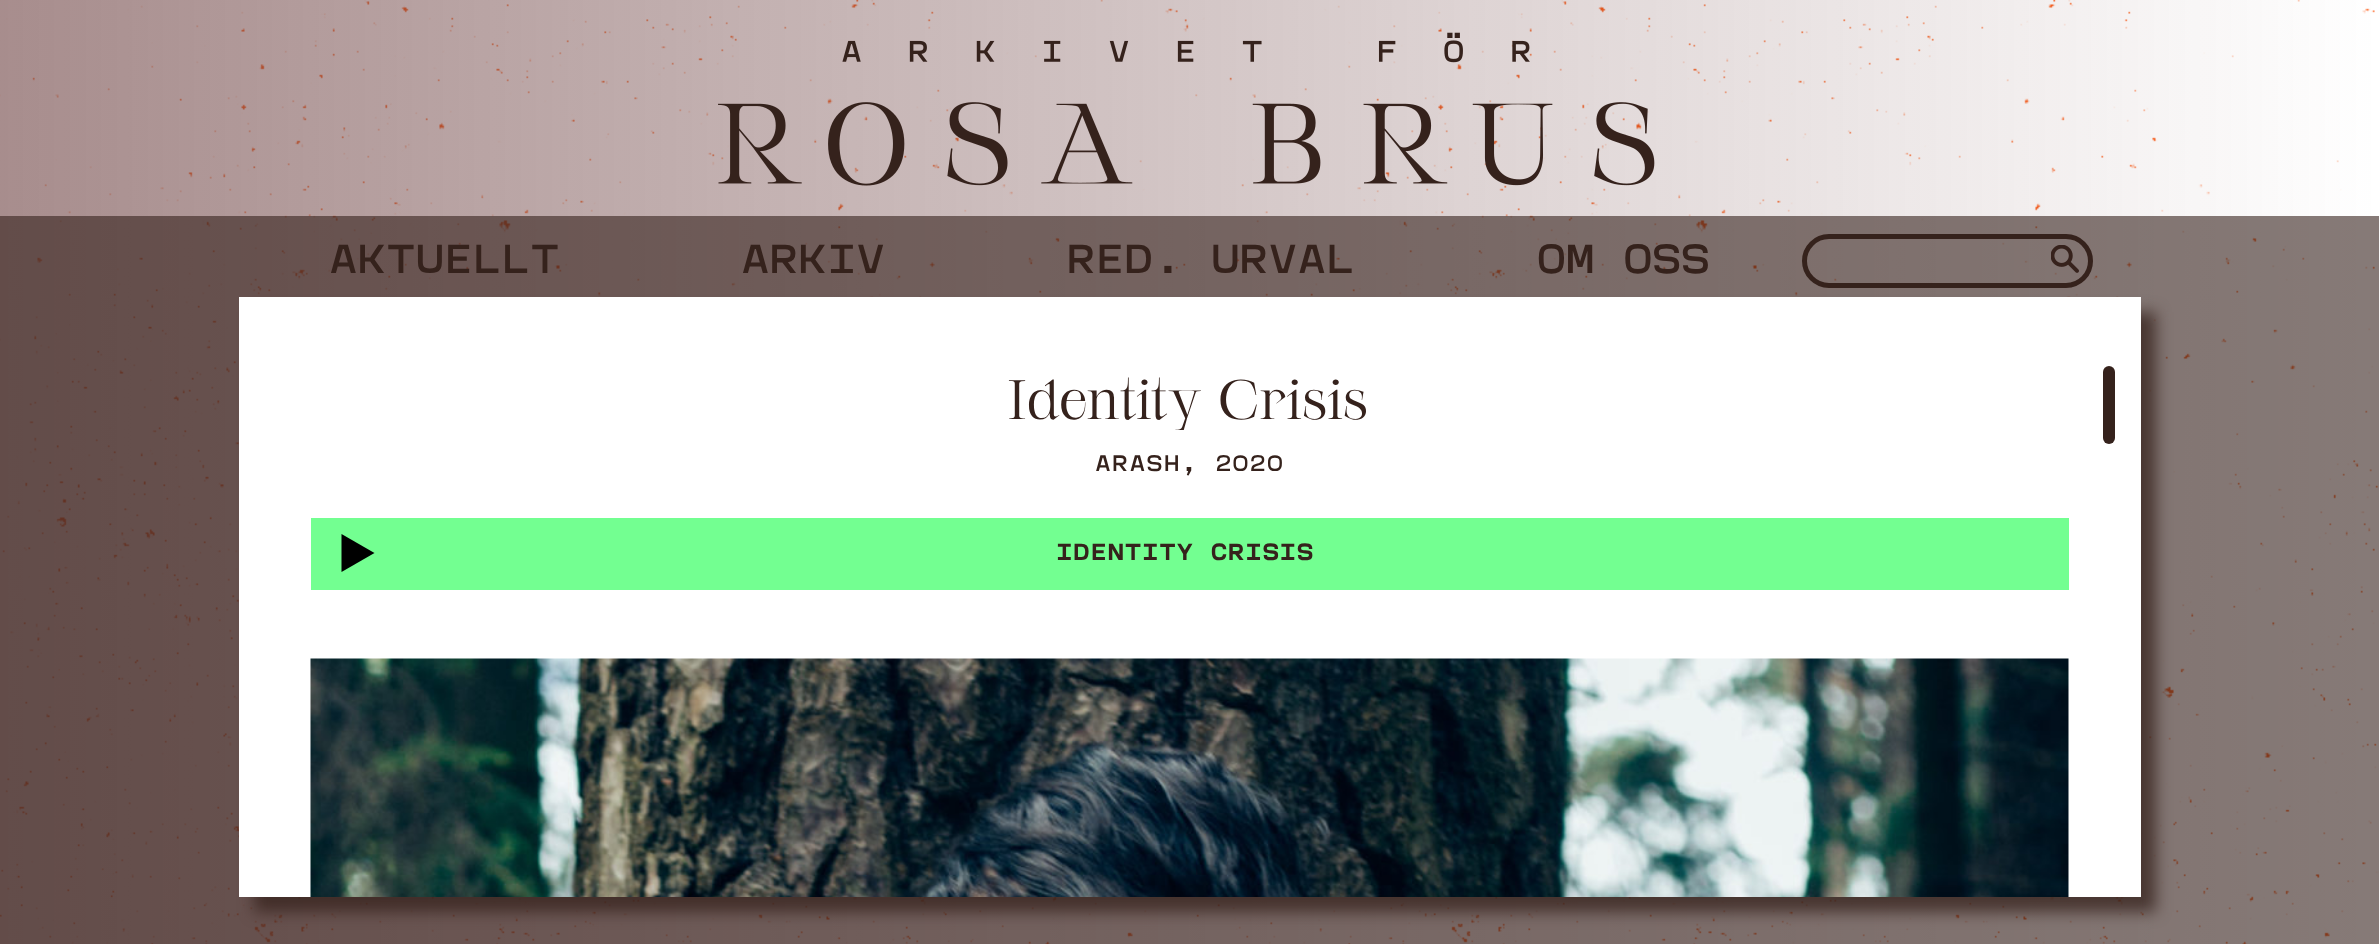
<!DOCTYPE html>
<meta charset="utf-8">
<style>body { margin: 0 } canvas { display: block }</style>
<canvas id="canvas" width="2379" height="944"></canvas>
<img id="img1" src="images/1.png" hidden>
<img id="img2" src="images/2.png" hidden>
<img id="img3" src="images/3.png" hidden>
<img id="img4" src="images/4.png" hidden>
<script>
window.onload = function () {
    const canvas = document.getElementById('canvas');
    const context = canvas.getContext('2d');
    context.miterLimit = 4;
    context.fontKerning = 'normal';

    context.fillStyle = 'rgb(255, 255, 255)';
    context.fillRect(0, 0, 2379, 944);
    context.drawImage(document.getElementById('img1'), 0, 0, 2379, 944);
    context.drawImage(document.getElementById('img2'), 718, 32, 937, 154);
    context.fillStyle = 'rgba(53, 34, 28, 0.6)';
    context.fillRect(0, 216, 239, 81);
    context.fillRect(239, 216, 412, 81);
    context.fillRect(651, 216, 326, 81);
    context.fillRect(977, 216, 469, 81);
    context.fillRect(1446, 216, 356, 81);
    context.fillRect(1802, 216, 339, 81);
    context.beginPath();
    context.roundRect(1804.5, 236.5, 286, 49, 24.5);
    context.strokeStyle = 'rgb(53, 34, 28)';
    context.lineWidth = 5;
    context.stroke();
    context.drawImage(document.getElementById('img3'), 2051, 245, 28, 28);
    context.fillRect(2141, 216, 238, 81);
    context.fillRect(0, 297, 2379, 647);
    context.fillStyle = 'rgba(53, 34, 28, 0.75)';
    context.filter = 'blur(7.5px)';
    context.beginPath();
    context.rect(254, 312, 1902, 600);
    context.fill();
    context.filter = 'none';
    context.fillStyle = 'rgb(255, 255, 255)';
    context.fillRect(239, 297, 1902, 600);
    context.fillStyle = 'rgb(115, 255, 145)';
    context.fillRect(311, 518, 1758, 72);
    context.fillStyle = 'rgb(0, 0, 0)';
    context.beginPath();
    context.moveTo(374.5, 553);
    context.lineTo(341.5, 534);
    context.lineTo(341.5, 572);
    context.closePath();
    context.fill();
    context.drawImage(document.getElementById('img4'), 310, 658, 1759, 239);
    context.fillStyle = 'rgb(53, 34, 28)';
    context.beginPath();
    context.roundRect(2103, 366, 12, 78, 6);
    context.fill();
    context.font = '500 48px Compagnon';
    context.fillText('AKTUELLT', 329, 273);
    context.fillText('ARKIV', 741, 273);
    context.fillText('RED. URVAL', 1067, 273);
    context.fillText('OM OSS', 1537, 273);
    context.font = '55.25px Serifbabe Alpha';
    context.fillText('Identity Crisis', 1007, 419);
    context.letterSpacing = '1.3px';
    context.font = '500 26.5px Compagnon';
    context.fillText('ARASH, 2020', 1095, 471);
    context.font = 'bold 26.5px Compagnon';
    context.fillText('IDENTITY CRISIS', 1056, 560);
};
</script>
